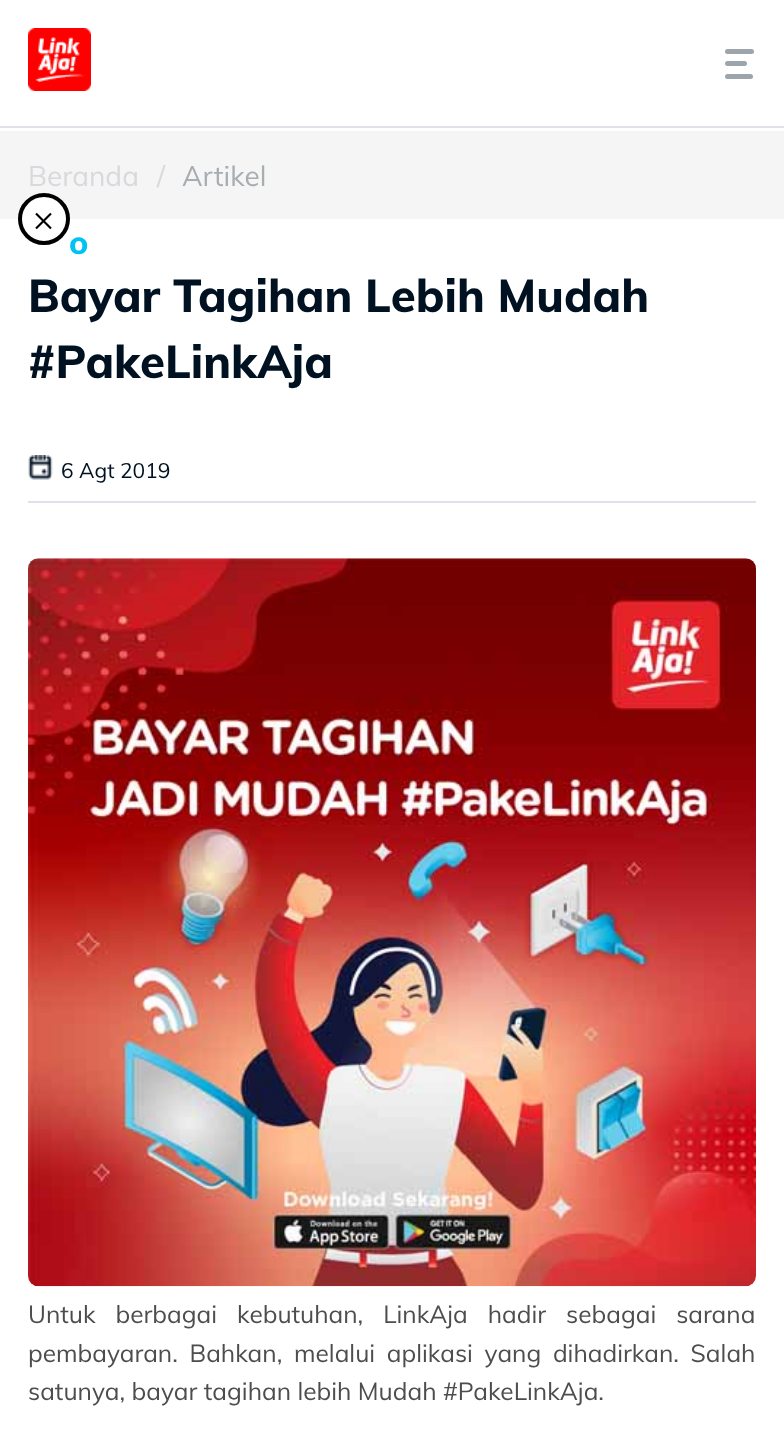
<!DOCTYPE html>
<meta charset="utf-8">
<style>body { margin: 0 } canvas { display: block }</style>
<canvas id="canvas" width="784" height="1447"></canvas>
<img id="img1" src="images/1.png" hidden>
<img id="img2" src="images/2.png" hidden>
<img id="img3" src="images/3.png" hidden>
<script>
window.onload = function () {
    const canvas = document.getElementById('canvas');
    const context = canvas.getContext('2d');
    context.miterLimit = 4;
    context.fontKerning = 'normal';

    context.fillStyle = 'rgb(255, 255, 255)';
    context.fillRect(0, 0, 784, 1447);
    context.fillStyle = 'rgb(245, 245, 245)';
    context.fillRect(0, 131, 784, 88);
    context.drawImage(document.getElementById('img1'), 28, 28, 63, 63);
    context.fillStyle = 'rgb(156, 164, 172)';
    context.beginPath();
    context.roundRect(725, 61, 22, 5, 2.5);
    context.fill();
    context.beginPath();
    context.roundRect(725, 49, 29, 5, 2.5);
    context.fill();
    context.beginPath();
    context.roundRect(725, 74, 28, 5, 2.5);
    context.fill();
    context.fillStyle = 'rgb(225, 225, 237)';
    context.fillRect(0, 126, 784, 2);
    context.drawImage(document.getElementById('img2'), 28, 455, 25, 25);
    context.fillRect(28, 501, 728, 2);
    context.drawImage(document.getElementById('img3'), 28, 558, 728, 729);
    context.font = '28px Mulish';
    context.fillStyle = 'rgb(215, 217, 220)';
    context.fillText('Beranda', 28, 186);
    context.fillText('/', 157, 186);
    context.fillStyle = 'rgb(168, 173, 178)';
    context.fillText('Artikel', 182, 186);
    context.font = '800 32px Mulish';
    context.fillStyle = 'rgb(0, 195, 242)';
    context.fillText('o', 69, 254);
    context.font = '800 45.5px Mulish';
    context.fillStyle = 'rgb(0, 17, 34)';
    context.fillText('Bayar Tagihan Lebih Mudah', 28, 312);
    context.fillText('#PakeLinkAja', 28, 378);
    context.font = '21px Mulish';
    context.fillText('6 Agt 2019', 61, 478);
    context.wordSpacing = '13.5px';
    context.font = '24.5px Mulish';
    context.fillStyle = 'rgb(77, 77, 77)';
    context.fillText('Untuk berbagai kebutuhan, LinkAja hadir sebagai sarana', 28, 1323);
    context.wordSpacing = '5.25px';
    context.fillText('pembayaran. Bahkan, melalui aplikasi yang dihadirkan. Salah', 28, 1362);
    context.wordSpacing = '0px';
    context.fillText('satunya, bayar tagihan lebih Mudah #PakeLinkAja.', 28, 1400);
    context.fillStyle = 'rgb(255, 255, 255)';
    context.beginPath();
    context.arc(44, 219, 24, 0, 2 * Math.PI);
    context.fill();
    context.strokeStyle = 'rgb(0, 0, 0)';
    context.lineWidth = 4;
    context.stroke();
    context.font = '35px Mulish';
    context.fillStyle = 'rgb(0, 0, 0)';
    context.fillText('×', 33, 231);
};
</script>
